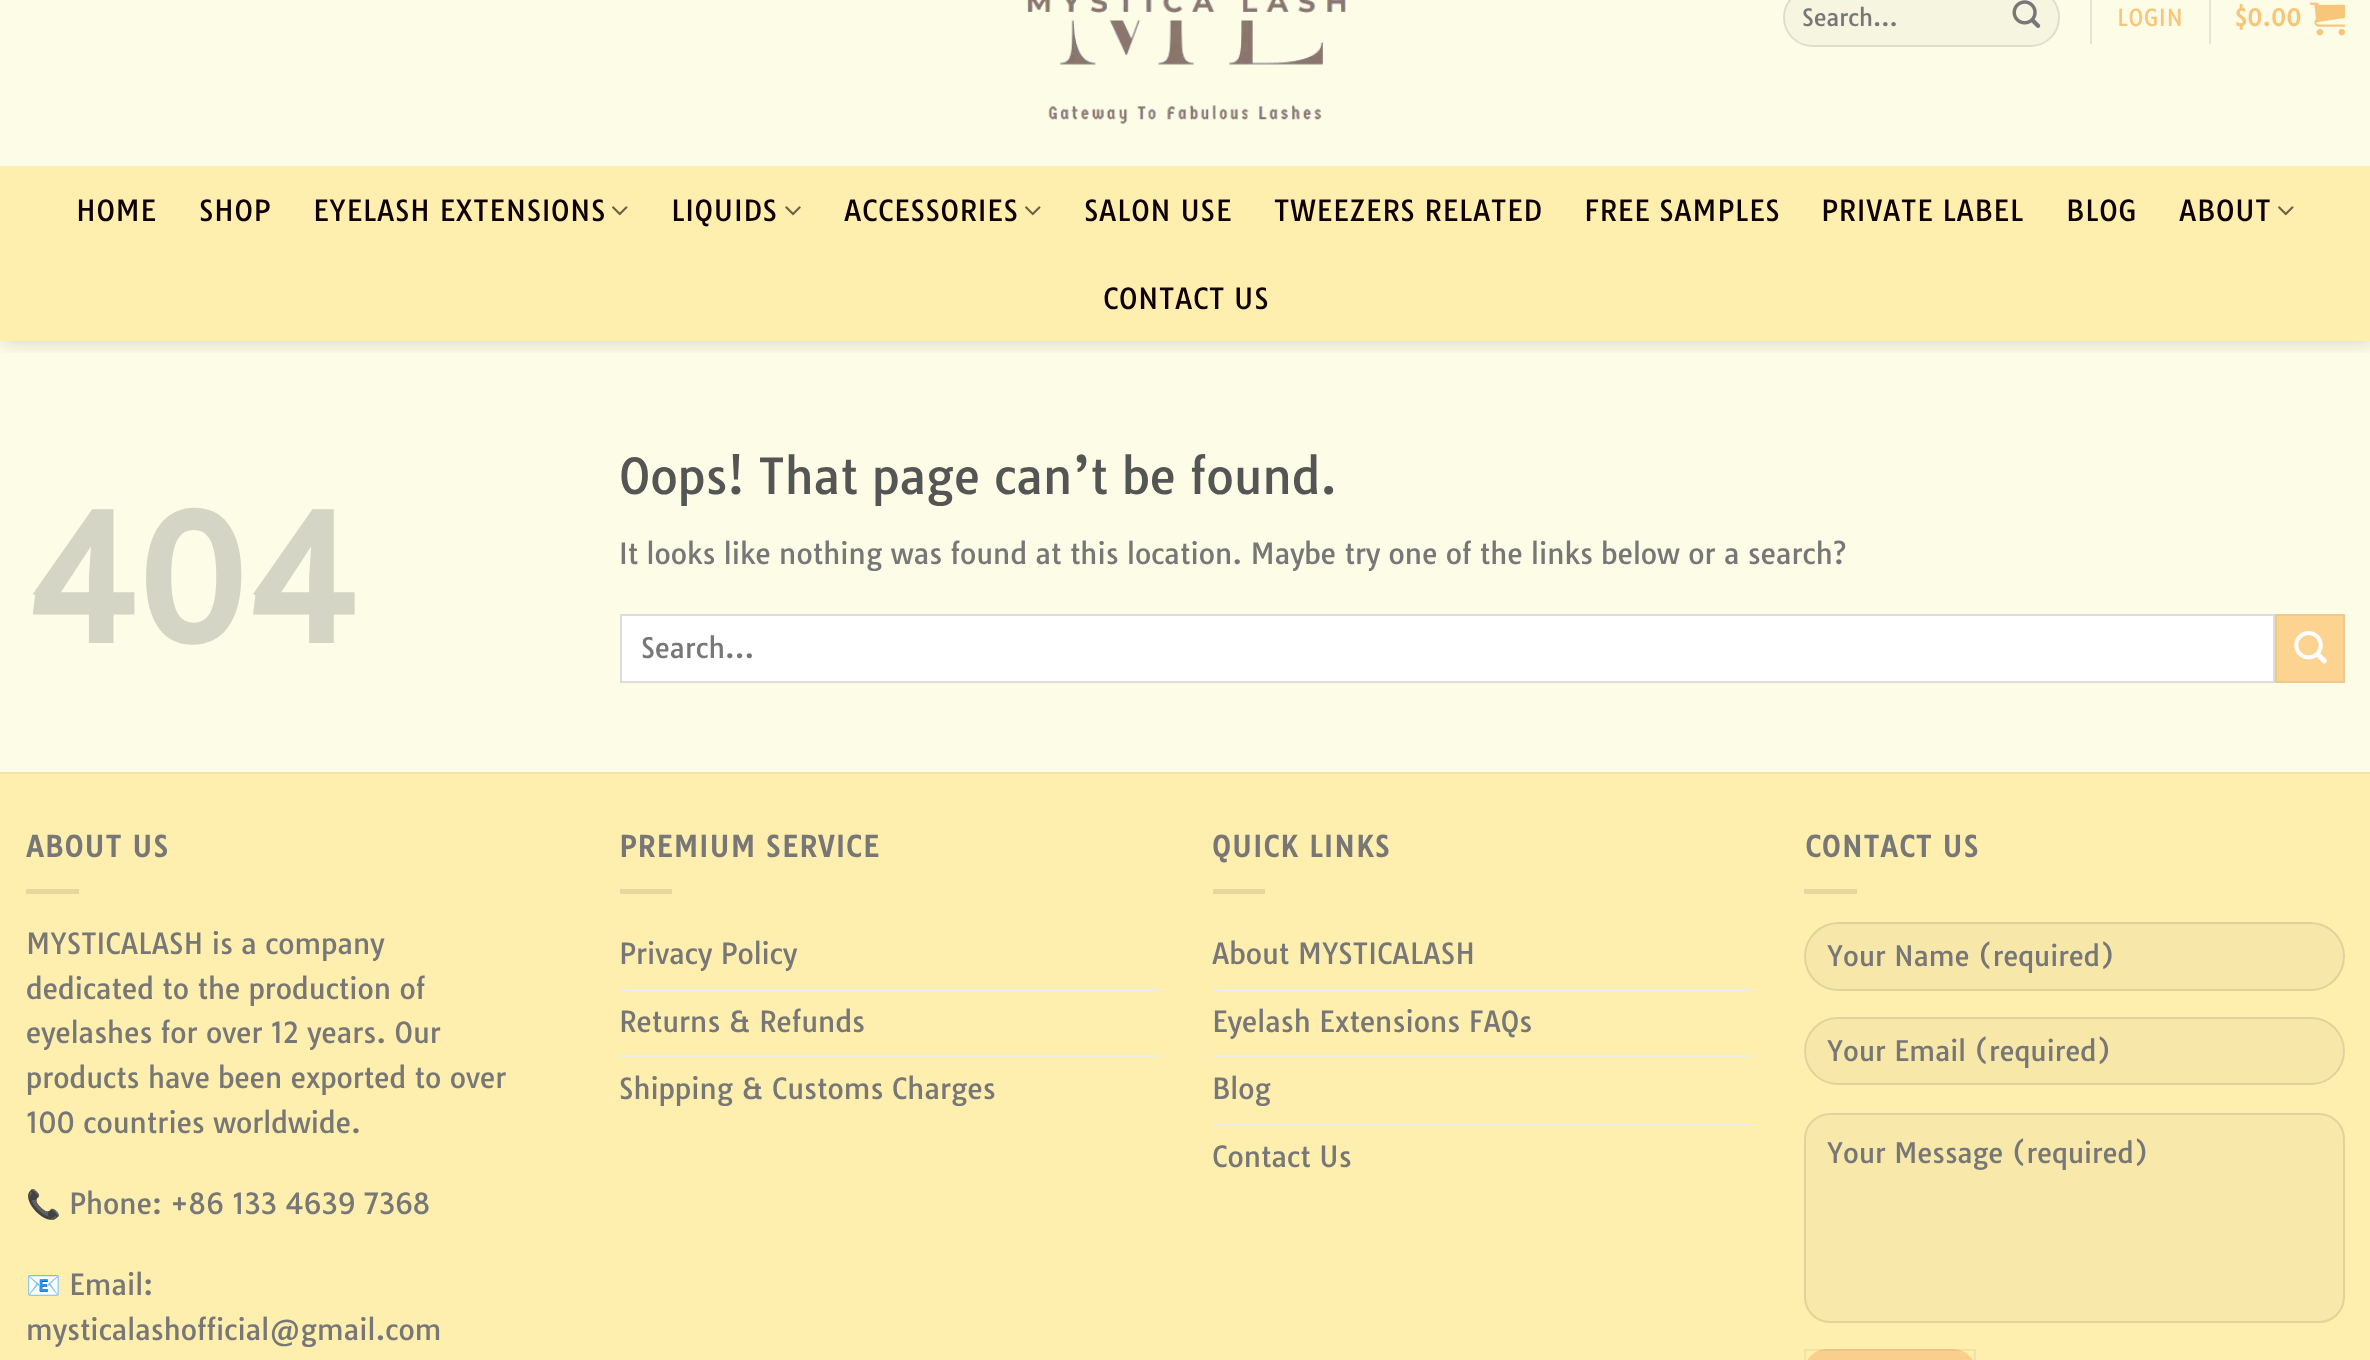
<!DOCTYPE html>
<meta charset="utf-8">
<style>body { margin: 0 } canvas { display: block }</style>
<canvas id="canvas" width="2370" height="1360"></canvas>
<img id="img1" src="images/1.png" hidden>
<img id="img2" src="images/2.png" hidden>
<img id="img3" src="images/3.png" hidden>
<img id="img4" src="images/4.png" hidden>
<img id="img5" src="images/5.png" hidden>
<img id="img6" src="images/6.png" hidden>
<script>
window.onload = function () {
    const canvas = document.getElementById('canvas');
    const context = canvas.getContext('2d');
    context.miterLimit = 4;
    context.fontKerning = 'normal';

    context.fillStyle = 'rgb(253, 253, 231)';
    context.fillRect(0, 0, 2370, 1360);
    context.save();
    context.beginPath();
    context.rect(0, 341, 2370, 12);
    context.clip();
    context.fillStyle = 'rgba(0, 0, 0, 0.15)';
    context.filter = 'blur(9px)';
    context.beginPath();
    context.rect(2, -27, 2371, 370);
    context.fill();
    context.filter = 'none';
    context.restore();
    context.drawImage(document.getElementById('img1'), 1027, 0, 319, 125);
    context.fillStyle = 'rgb(245, 245, 224)';
    context.beginPath();
    context.roundRect(1783, -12, 277, 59, 29.5);
    context.fill();
    context.beginPath();
    context.roundRect(1784, -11, 275, 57, 28.5);
    context.strokeStyle = 'rgba(0, 0, 0, 0.09)';
    context.lineWidth = 2;
    context.stroke();
    context.drawImage(document.getElementById('img2'), 2012, 0, 29, 28);
    context.fillStyle = 'rgb(228, 228, 208)';
    context.fillRect(2090, 0, 2, 44);
    context.fillRect(2209, 0, 2, 44);
    context.drawImage(document.getElementById('img3'), 2310, 2, 35, 34);
    context.fillStyle = 'rgb(255, 239, 175)';
    context.fillRect(0, 166, 2370, 175);
    context.drawImage(document.getElementById('img4'), 612, 206, 16, 10);
    context.drawImage(document.getElementById('img5'), 785, 206, 16, 10);
    context.drawImage(document.getElementById('img4'), 1025, 206, 16, 10);
    context.drawImage(document.getElementById('img4'), 2278, 206, 16, 10);
    context.fillStyle = 'rgb(255, 255, 255)';
    context.beginPath();
    context.rect(621, 615, 1653, 67);
    context.fill();
    context.strokeStyle = 'rgb(221, 221, 221)';
    context.stroke();
    context.fillStyle = 'rgb(252, 211, 145)';
    context.beginPath();
    context.rect(2276, 615, 68, 67);
    context.fill();
    context.strokeStyle = 'rgb(239, 200, 138)';
    context.stroke();
    context.drawImage(document.getElementById('img6'), 2294, 631, 33, 33);
    context.fillStyle = 'rgb(255, 239, 175)';
    context.fillRect(0, 774, 2370, 586);
    context.fillStyle = 'rgb(242, 227, 166)';
    context.fillRect(0, 772, 2370, 2);
    context.fillStyle = 'rgb(230, 215, 158)';
    context.fillRect(26, 889, 53, 5);
    context.fillRect(620, 889, 52, 5);
    context.fillStyle = 'rgb(236, 236, 236)';
    context.fillRect(620, 989, 540, 2);
    context.fillRect(620, 1055, 540, 2);
    context.fillStyle = 'rgb(230, 215, 158)';
    context.fillRect(1213, 889, 52, 5);
    context.fillStyle = 'rgb(236, 236, 236)';
    context.fillRect(1213, 989, 539, 2);
    context.fillRect(1213, 1055, 539, 2);
    context.fillRect(1213, 1124, 539, 2);
    context.fillStyle = 'rgb(230, 215, 158)';
    context.fillRect(1804, 889, 53, 5);
    context.fillStyle = 'rgb(247, 232, 170)';
    context.beginPath();
    context.roundRect(1804, 922, 541, 69, 34.5);
    context.fill();
    context.beginPath();
    context.roundRect(1805, 923, 539, 67, 33.5);
    context.strokeStyle = 'rgba(0, 0, 0, 0.09)';
    context.stroke();
    context.beginPath();
    context.roundRect(1804, 1017, 541, 68, 34);
    context.fill();
    context.beginPath();
    context.roundRect(1805, 1018, 539, 66, 33);
    context.stroke();
    context.fillStyle = 'rgb(248, 232, 170)';
    context.beginPath();
    context.roundRect(1804, 1113, 541, 210, 26);
    context.fill();
    context.beginPath();
    context.roundRect(1805, 1114, 539, 208, 25);
    context.stroke();
    context.fillStyle = 'rgb(250, 207, 141)';
    context.beginPath();
    context.roundRect(1804, 1349, 172, 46, 35);
    context.fill();
    context.strokeStyle = 'rgba(0, 0, 0, 0.05)';
    context.strokeRect(1805, 1350, 170, 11);
    context.font = '23px Tauri';
    context.fillStyle = 'rgb(119, 119, 119)';
    context.fillText('Search…', 1802, 26);
    context.letterSpacing = '0.5px';
    context.font = '22.5px Tauri';
    context.fillStyle = 'rgb(248, 198, 123)';
    context.fillText('LOGIN', 2117, 26);
    context.font = 'bold 22.5px Tauri';
    context.fillText('$0.00', 2235, 26);
    context.letterSpacing = '0.6px';
    context.font = '28px Tauri';
    context.fillStyle = 'rgb(15, 0, 0)';
    context.fillText('HOME', 76, 221);
    context.fillText('SHOP', 199, 221);
    context.fillText('EYELASH EXTENSIONS', 313, 221);
    context.fillText('LIQUIDS', 671, 221);
    context.fillText('ACCESSORIES', 844, 221);
    context.fillText('SALON USE', 1084, 221);
    context.fillText('TWEEZERS RELATED', 1274, 221);
    context.fillText('FREE SAMPLES', 1584, 221);
    context.fillText('PRIVATE LABEL', 1821, 221);
    context.fillText('BLOG', 2066, 221);
    context.fillText('ABOUT', 2179, 221);
    context.fillText('CONTACT US', 1103, 309);
    context.letterSpacing = '0px';
    context.font = 'bold 168px Tauri';
    context.fillStyle = 'rgb(213, 213, 197)';
    context.fillText('404', 26, 643);
    context.font = '47.6px Tauri';
    context.fillStyle = 'rgb(85, 85, 85)';
    context.fillText('Oops! That page can’t be found.', 619, 494);
    context.font = '28px Tauri';
    context.fillStyle = 'rgb(119, 119, 119)';
    context.fillText('It looks like nothing was found at this location. Maybe try one of the links below or a search?', 619, 564);
    context.font = '27.2px Tauri';
    context.fillText('Search…', 641, 658);
    context.letterSpacing = '1.4px';
    context.font = 'bold 28px Tauri';
    context.fillText('ABOUT US', 26, 857);
    context.letterSpacing = '0px';
    context.font = '28px Tauri';
    context.fillText('MYSTICALASH is a company', 26, 954);
    context.fillText('dedicated to the production of', 26, 999);
    context.fillText('eyelashes for over 12 years. Our', 26, 1043);
    context.fillText('products have been exported to over', 26, 1088);
    context.fillText('100 countries worldwide.', 26, 1133);
    context.font = '28px Noto Color Emoji';
    context.fillText('📞', 26, 1214);
    context.font = '28px Tauri';
    context.fillText('Phone: +86 133 4639 7368', 69, 1214);
    context.font = '28px Noto Color Emoji';
    context.fillText('📧', 26, 1295);
    context.font = '28px Tauri';
    context.fillText('Email:', 69, 1295);
    context.fillText('mysticalashofficial@gmail.com', 26, 1340);
    context.letterSpacing = '1.4px';
    context.font = 'bold 28px Tauri';
    context.fillText('PREMIUM SERVICE', 619, 857);
    context.letterSpacing = '0px';
    context.font = '28px Tauri';
    context.fillText('Privacy Policy', 619, 964);
    context.fillText('Returns & Refunds', 619, 1032);
    context.fillText('Shipping & Customs Charges', 619, 1099);
    context.letterSpacing = '1.4px';
    context.font = 'bold 28px Tauri';
    context.fillText('QUICK LINKS', 1212, 857);
    context.letterSpacing = '0px';
    context.font = '28px Tauri';
    context.fillText('About MYSTICALASH', 1212, 964);
    context.fillText('Eyelash Extensions FAQs', 1212, 1032);
    context.fillText('Blog', 1212, 1099);
    context.fillText('Contact Us', 1212, 1167);
    context.letterSpacing = '1.4px';
    context.font = 'bold 28px Tauri';
    context.fillText('CONTACT US', 1805, 857);
    context.letterSpacing = '0px';
    context.font = '27.2px Tauri';
    context.fillText('Your Name (required)', 1827, 966);
    context.fillText('Your Email (required)', 1827, 1061);
    context.fillText('Your Message (required)', 1827, 1163);
};
</script>
